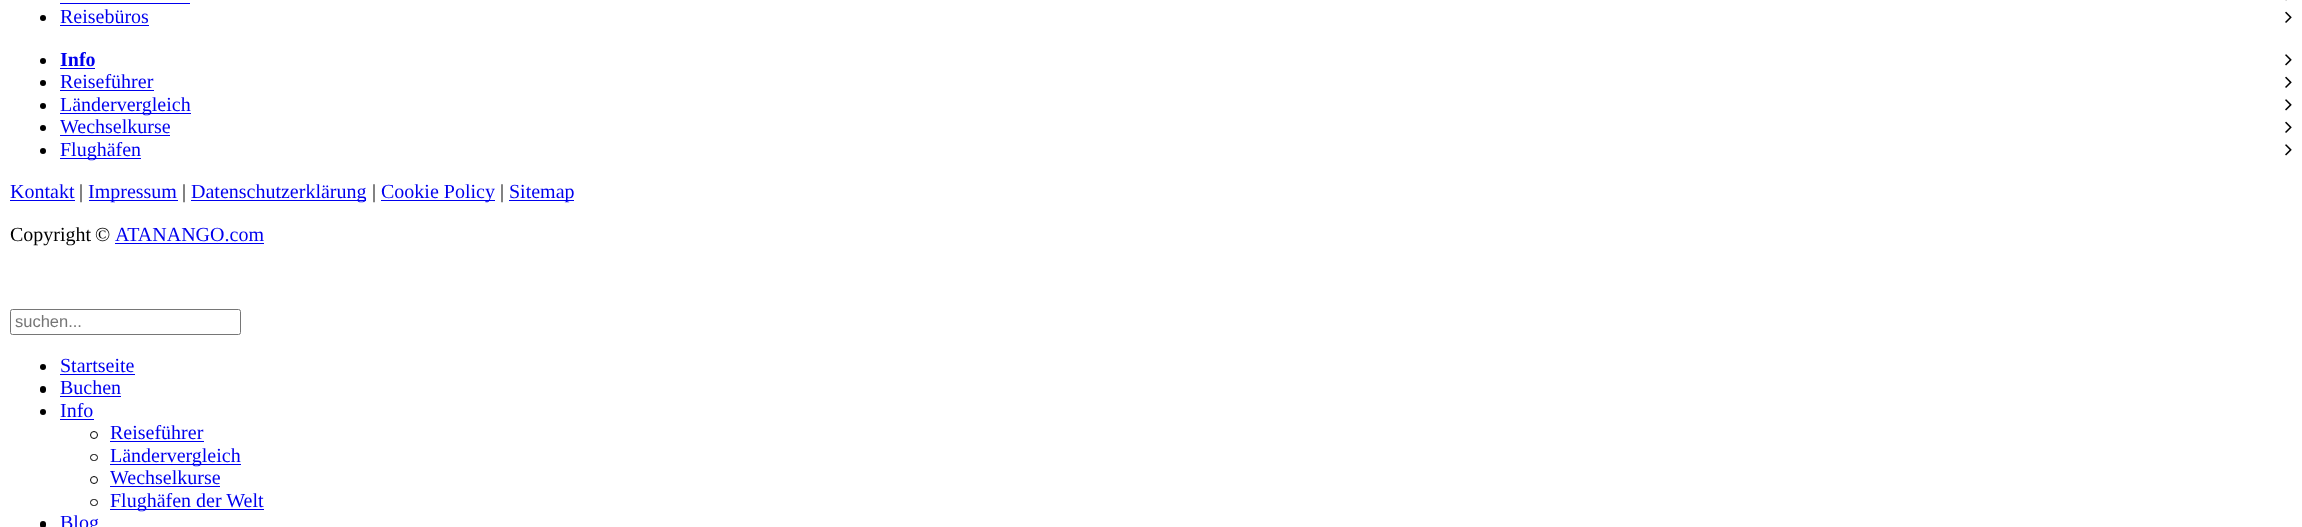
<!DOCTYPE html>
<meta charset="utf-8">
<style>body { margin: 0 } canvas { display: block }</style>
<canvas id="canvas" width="2302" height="527"></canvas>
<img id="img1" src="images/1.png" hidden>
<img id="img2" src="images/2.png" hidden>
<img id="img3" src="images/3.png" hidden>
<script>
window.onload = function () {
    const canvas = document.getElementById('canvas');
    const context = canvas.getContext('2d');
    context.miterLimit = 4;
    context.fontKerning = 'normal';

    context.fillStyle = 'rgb(255, 255, 255)';
    context.fillRect(0, 0, 2302, 527);
    context.drawImage(document.getElementById('img1'), 2285, 0, 2, 1);
    context.fillStyle = 'rgb(0, 0, 238)';
    context.fillRect(60, 3, 130, 1);
    context.fillStyle = 'rgb(0, 0, 0)';
    context.beginPath();
    context.arc(43, 18, 3, 0, 2 * Math.PI);
    context.fill();
    context.fillStyle = 'rgb(0, 0, 238)';
    context.fillRect(60, 25, 89, 1);
    context.drawImage(document.getElementById('img2'), 2285, 11, 7, 12);
    context.fillStyle = 'rgb(0, 0, 0)';
    context.beginPath();
    context.arc(43, 61, 3, 0, 2 * Math.PI);
    context.fill();
    context.fillStyle = 'rgb(0, 0, 238)';
    context.fillRect(60, 68, 35, 1);
    context.drawImage(document.getElementById('img3'), 2285, 54, 7, 12);
    context.fillStyle = 'rgb(0, 0, 0)';
    context.beginPath();
    context.arc(43, 83, 3, 0, 2 * Math.PI);
    context.fill();
    context.fillStyle = 'rgb(0, 0, 238)';
    context.fillRect(60, 90, 94, 1);
    context.drawImage(document.getElementById('img2'), 2285, 76, 7, 12);
    context.fillStyle = 'rgb(0, 0, 0)';
    context.beginPath();
    context.arc(43, 106, 3, 0, 2 * Math.PI);
    context.fill();
    context.fillStyle = 'rgb(0, 0, 238)';
    context.fillRect(60, 113, 131, 1);
    context.drawImage(document.getElementById('img3'), 2285, 99, 7, 12);
    context.fillStyle = 'rgb(0, 0, 0)';
    context.beginPath();
    context.arc(43, 128, 3, 0, 2 * Math.PI);
    context.fill();
    context.fillStyle = 'rgb(0, 0, 238)';
    context.fillRect(60, 135, 110, 1);
    context.drawImage(document.getElementById('img2'), 2285, 121, 7, 12);
    context.fillStyle = 'rgb(0, 0, 0)';
    context.beginPath();
    context.arc(43, 151, 3, 0, 2 * Math.PI);
    context.fill();
    context.fillStyle = 'rgb(0, 0, 238)';
    context.fillRect(60, 158, 81, 1);
    context.drawImage(document.getElementById('img3'), 2285, 144, 7, 12);
    context.fillRect(10, 200, 65, 1);
    context.fillRect(89, 200, 89, 1);
    context.fillRect(191, 200, 175, 1);
    context.fillRect(381, 200, 114, 1);
    context.fillRect(509, 200, 65, 1);
    context.fillRect(115, 243, 149, 1);
    context.beginPath();
    context.roundRect(10.5, 309.5, 230, 25, 2);
    context.strokeStyle = 'rgb(118, 118, 118)';
    context.stroke();
    context.fillStyle = 'rgb(0, 0, 0)';
    context.beginPath();
    context.arc(43, 367, 3, 0, 2 * Math.PI);
    context.fill();
    context.fillStyle = 'rgb(0, 0, 238)';
    context.fillRect(60, 374, 75, 1);
    context.fillStyle = 'rgb(0, 0, 0)';
    context.beginPath();
    context.roundRect(40, 386, 6, 7, 3);
    context.fill();
    context.fillStyle = 'rgb(0, 0, 238)';
    context.fillRect(60, 396, 61, 1);
    context.fillStyle = 'rgb(0, 0, 0)';
    context.beginPath();
    context.arc(43, 412, 3, 0, 2 * Math.PI);
    context.fill();
    context.fillStyle = 'rgb(0, 0, 238)';
    context.fillRect(60, 419, 34, 1);
    context.beginPath();
    context.arc(94, 435, 3.5, 0, 2 * Math.PI);
    context.strokeStyle = 'rgb(0, 0, 0)';
    context.stroke();
    context.fillRect(110, 441, 94, 1);
    context.beginPath();
    context.roundRect(90.5, 454.5, 7, 6, 3);
    context.stroke();
    context.fillRect(110, 464, 131, 1);
    context.beginPath();
    context.arc(94, 480, 3.5, 0, 2 * Math.PI);
    context.stroke();
    context.fillRect(110, 486, 110, 1);
    context.beginPath();
    context.roundRect(90.5, 499.5, 7, 6, 3);
    context.stroke();
    context.fillRect(110, 509, 154, 1);
    context.fillStyle = 'rgb(0, 0, 0)';
    context.beginPath();
    context.roundRect(40, 521, 6, 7, 3);
    context.fill();
    context.font = '20px Liberation Serif';
    context.fillStyle = 'rgb(0, 0, 238)';
    context.fillText('Reisebüros', 60, 23);
    context.font = 'bold 20px Liberation Serif';
    context.fillText('Info', 60, 66);
    context.font = '20px Liberation Serif';
    context.fillText('Reiseführer', 60, 88);
    context.fillText('Ländervergleich', 60, 111);
    context.fillText('Wechselkurse', 60, 133);
    context.fillText('Flughäfen', 60, 156);
    context.fillText('Kontakt', 10, 198);
    context.fillStyle = 'rgb(0, 0, 0)';
    context.fillText('|', 79, 198);
    context.fillStyle = 'rgb(0, 0, 238)';
    context.fillText('Impressum', 88, 198);
    context.fillStyle = 'rgb(0, 0, 0)';
    context.fillText('|', 182, 198);
    context.fillStyle = 'rgb(0, 0, 238)';
    context.fillText('Datenschutzerklärung', 191, 198);
    context.fillStyle = 'rgb(0, 0, 0)';
    context.fillText('|', 372, 198);
    context.fillStyle = 'rgb(0, 0, 238)';
    context.fillText('Cookie Policy', 381, 198);
    context.fillStyle = 'rgb(0, 0, 0)';
    context.fillText('|', 500, 198);
    context.fillStyle = 'rgb(0, 0, 238)';
    context.fillText('Sitemap', 509, 198);
    context.wordSpacing = '-1px';
    context.fillStyle = 'rgb(0, 0, 0)';
    context.fillText('Copyright ©', 10, 241);
    context.wordSpacing = '0px';
    context.fillStyle = 'rgb(0, 0, 238)';
    context.fillText('ATANANGO.com', 115, 241);
    context.font = '16.5px Liberation Sans';
    context.fillStyle = 'rgb(117, 117, 117)';
    context.fillText('suchen...', 15, 327);
    context.font = '20px Liberation Serif';
    context.fillStyle = 'rgb(0, 0, 238)';
    context.fillText('Startseite', 60, 372);
    context.fillText('Buchen', 60, 394);
    context.fillText('Info', 60, 417);
    context.fillText('Reiseführer', 110, 439);
    context.fillText('Ländervergleich', 110, 462);
    context.fillText('Wechselkurse', 110, 484);
    context.fillText('Flughäfen der Welt', 110, 507);
    context.fillText('Blog', 60, 529);
};
</script>
